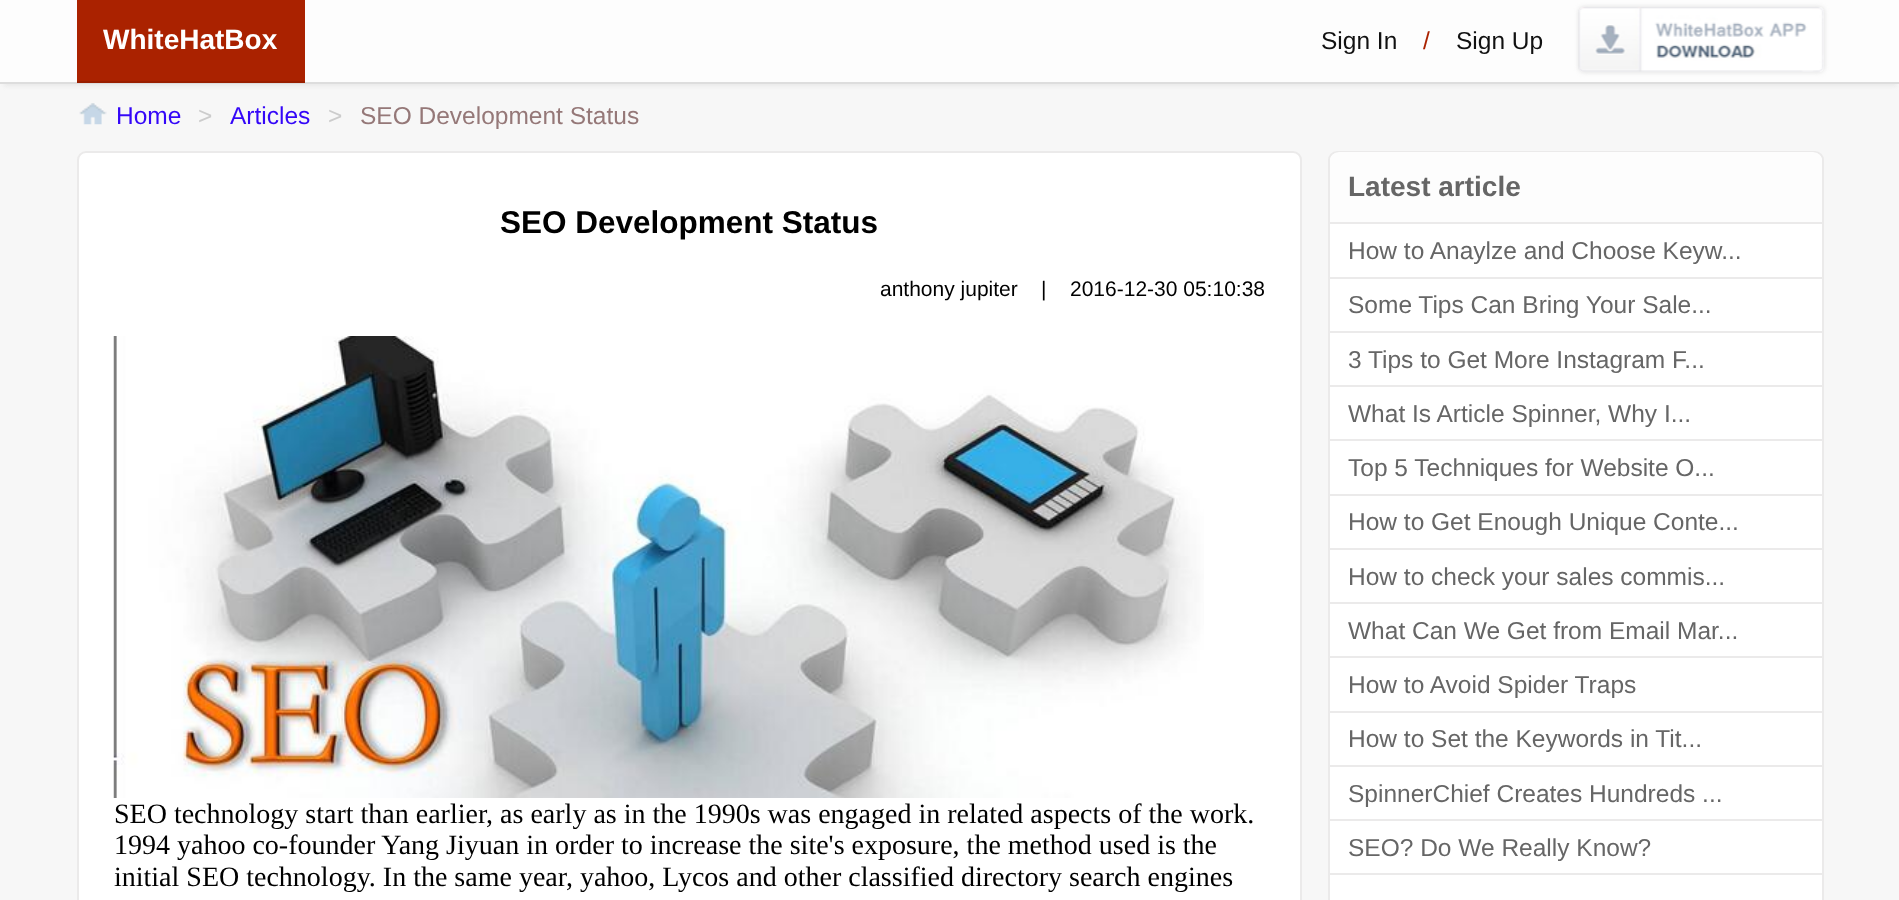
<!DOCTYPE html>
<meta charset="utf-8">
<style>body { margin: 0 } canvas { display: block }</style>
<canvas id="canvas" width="1899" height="900"></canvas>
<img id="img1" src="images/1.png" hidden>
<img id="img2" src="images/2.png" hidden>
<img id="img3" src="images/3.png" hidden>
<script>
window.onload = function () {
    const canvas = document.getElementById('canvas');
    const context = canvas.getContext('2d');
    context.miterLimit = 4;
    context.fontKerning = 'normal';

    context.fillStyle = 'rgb(247, 247, 247)';
    context.fillRect(0, 0, 1899, 900);
    context.fillStyle = 'rgba(200, 200, 200, 0.3)';
    context.filter = 'blur(2px)';
    context.beginPath();
    context.rect(4, 9, 1893, 77);
    context.fill();
    context.filter = 'none';
    context.fillStyle = 'rgb(253, 253, 253)';
    context.fillRect(0, 0, 1899, 82);
    context.fillStyle = 'rgb(221, 221, 221)';
    context.fillRect(0, 82, 1899, 2);
    context.fillStyle = 'rgb(170, 34, 0)';
    context.fillRect(77, 0, 228, 81);
    context.fillStyle = 'rgb(153, 31, 0)';
    context.fillRect(77, 81, 228, 2);
    context.save();
    context.beginPath();
    context.moveTo(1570, 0);
    context.lineTo(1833, 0);
    context.lineTo(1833, 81);
    context.lineTo(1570, 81);
    context.closePath();
    context.moveTo(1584, 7);
    context.lineTo(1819, 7);
    context.bezierCurveTo(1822, 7, 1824, 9, 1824, 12);
    context.lineTo(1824, 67);
    context.bezierCurveTo(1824, 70, 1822, 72, 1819, 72);
    context.lineTo(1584, 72);
    context.bezierCurveTo(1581, 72, 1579, 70, 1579, 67);
    context.lineTo(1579, 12);
    context.bezierCurveTo(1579, 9, 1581, 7, 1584, 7);
    context.closePath();
    context.clip('evenodd');
    context.fillStyle = 'rgb(221, 221, 221)';
    context.filter = 'blur(2.5px)';
    context.beginPath();
    context.roundRect(1579, 7, 245, 65, 5);
    context.fill();
    context.filter = 'none';
    context.restore();
    context.drawImage(document.getElementById('img1'), 1578, 7, 246, 65);
    context.drawImage(document.getElementById('img2'), 79, 103, 28, 22);
    context.fillStyle = 'rgb(255, 255, 255)';
    context.beginPath();
    context.roundRect(78, 152, 1223, 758, 8);
    context.fill();
    context.strokeStyle = 'rgb(235, 234, 234)';
    context.lineWidth = 2;
    context.stroke();
    context.drawImage(document.getElementById('img3'), 113, 336, 1091, 462);
    context.beginPath();
    context.roundRect(1329, 152, 494, 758, 8);
    context.fill();
    context.stroke();
    context.fillStyle = 'rgb(253, 253, 253)';
    context.beginPath();
    context.roundRect(1330, 152, 492, 70, [9, 9, 0, 0]);
    context.fill();
    context.fillStyle = 'rgb(235, 234, 234)';
    context.fillRect(1330, 222, 492, 2);
    context.fillRect(1330, 277, 492, 2);
    context.fillRect(1330, 331, 492, 2);
    context.fillRect(1330, 385, 492, 2);
    context.fillRect(1330, 439, 492, 2);
    context.fillRect(1330, 494, 492, 2);
    context.fillRect(1330, 548, 492, 2);
    context.fillRect(1330, 602, 492, 2);
    context.fillRect(1330, 656, 492, 2);
    context.fillRect(1330, 711, 492, 2);
    context.fillRect(1330, 765, 492, 2);
    context.fillRect(1330, 819, 492, 2);
    context.fillRect(1330, 873, 492, 2);
    context.font = 'bold 28px Liberation Sans';
    context.fillStyle = 'rgb(255, 255, 255)';
    context.fillText('WhiteHatBox', 103, 49);
    context.font = '24.5px Liberation Sans';
    context.fillStyle = 'rgb(17, 17, 17)';
    context.fillText('Sign In', 1321, 49);
    context.fillStyle = 'rgb(170, 34, 0)';
    context.fillText('/', 1423, 49);
    context.fillStyle = 'rgb(17, 17, 17)';
    context.fillText('Sign Up', 1456, 49);
    context.fillStyle = 'rgb(52, 7, 248)';
    context.fillText('Home', 116, 124);
    context.fillStyle = 'rgb(204, 204, 204)';
    context.fillText('>', 198, 124);
    context.fillStyle = 'rgb(52, 7, 248)';
    context.fillText('Articles', 230, 124);
    context.fillStyle = 'rgb(204, 204, 204)';
    context.fillText('>', 328, 124);
    context.fillStyle = 'rgb(149, 120, 120)';
    context.fillText('SEO Development Status', 360, 124);
    context.font = 'bold 31.5px Liberation Sans';
    context.fillStyle = 'rgb(0, 0, 0)';
    context.fillText('SEO Development Status', 500, 233);
    context.font = '21px Liberation Sans';
    context.fillText('anthony jupiter', 880, 296);
    context.fillText('|', 1041, 296);
    context.fillText('2016-12-30 05:10:38', 1070, 296);
    context.font = '28px Liberation Serif';
    context.fillText('SEO technology start than earlier, as early as in the 1990s was engaged in related aspects of the work.', 114, 823);
    context.fillText('1994 yahoo co-founder Yang Jiyuan in order to increase the site\'s exposure, the method used is the', 114, 854);
    context.fillText('initial SEO technology. In the same year, yahoo, Lycos and other classified directory search engines', 114, 886);
    context.font = 'bold 28px Liberation Sans';
    context.fillStyle = 'rgb(102, 102, 102)';
    context.fillText('Latest article', 1348, 196);
    context.font = '24.5px Liberation Sans';
    context.fillText('How to Anaylze and Choose Keyw...', 1348, 259);
    context.fillText('Some Tips Can Bring Your Sale...', 1348, 313);
    context.fillText('3 Tips to Get More Instagram F...', 1348, 368);
    context.fillText('What Is Article Spinner, Why I...', 1348, 422);
    context.fillText('Top 5 Techniques for Website O...', 1348, 476);
    context.fillText('How to Get Enough Unique Conte...', 1348, 530);
    context.fillText('How to check your sales commis...', 1348, 585);
    context.fillText('What Can We Get from Email Mar...', 1348, 639);
    context.fillText('How to Avoid Spider Traps', 1348, 693);
    context.fillText('How to Set the Keywords in Tit...', 1348, 747);
    context.fillText('SpinnerChief Creates Hundreds ...', 1348, 802);
    context.fillText('SEO? Do We Really Know?', 1348, 856);
};
</script>
